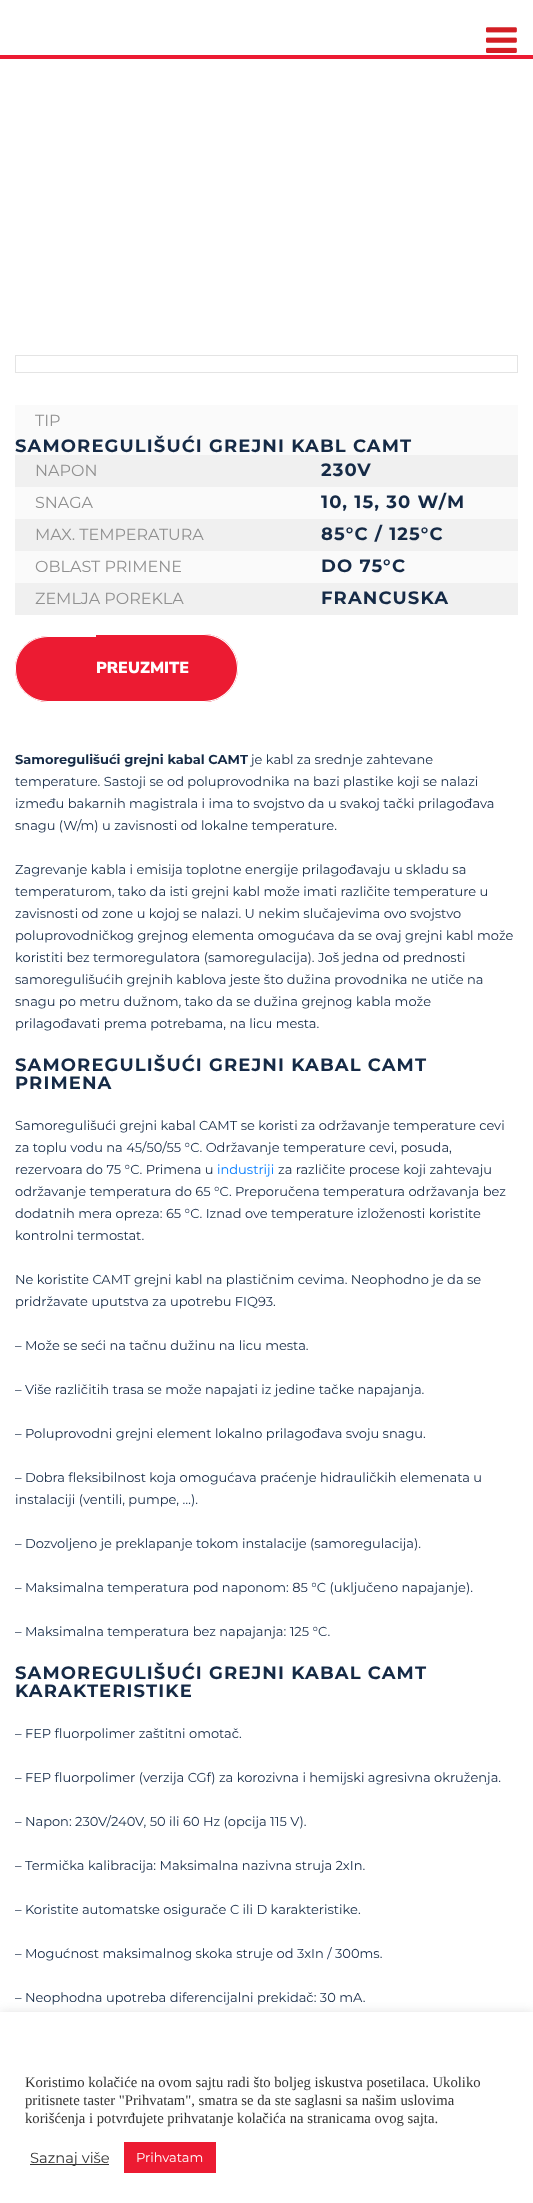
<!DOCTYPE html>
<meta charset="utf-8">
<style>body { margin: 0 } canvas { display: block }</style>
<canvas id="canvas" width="533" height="2203"></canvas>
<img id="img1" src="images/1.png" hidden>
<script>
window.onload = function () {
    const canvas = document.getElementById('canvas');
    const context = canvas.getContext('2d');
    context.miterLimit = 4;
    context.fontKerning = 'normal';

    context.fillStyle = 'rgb(255, 255, 255)';
    context.fillRect(0, 0, 533, 2203);
    context.fillStyle = 'rgb(236, 27, 50)';
    context.fillRect(0, 55, 533, 4);
    context.drawImage(document.getElementById('img1'), 486, 27, 31, 26);
    context.strokeStyle = 'rgb(228, 228, 228)';
    context.strokeRect(15.5, 355.5, 502, 17);
    context.fillStyle = 'rgb(250, 250, 250)';
    context.fillRect(15, 405, 503, 50);
    context.fillStyle = 'rgb(240, 240, 240)';
    context.fillRect(15, 455, 503, 32);
    context.fillStyle = 'rgb(250, 250, 250)';
    context.fillRect(15, 487, 503, 32);
    context.fillStyle = 'rgb(240, 240, 240)';
    context.fillRect(15, 519, 503, 32);
    context.fillStyle = 'rgb(250, 250, 250)';
    context.fillRect(15, 551, 503, 32);
    context.fillStyle = 'rgb(240, 240, 240)';
    context.fillRect(15, 583, 503, 32);
    context.fillStyle = 'rgb(236, 27, 50)';
    context.beginPath();
    context.roundRect(15, 636, 81, 66, [33, 0, 0, 33]);
    context.fill();
    context.fillStyle = 'rgb(255, 255, 255)';
    context.beginPath();
    context.moveTo(48, 636);
    context.lineTo(96, 636);
    context.lineTo(96, 702);
    context.lineTo(48, 702);
    context.bezierCurveTo(30, 702, 15, 687, 15, 669);
    context.bezierCurveTo(15, 651, 30, 636, 48, 636);
    context.closePath();
    context.moveTo(48, 637);
    context.lineTo(96, 637);
    context.lineTo(96, 701);
    context.lineTo(48, 701);
    context.bezierCurveTo(30, 701, 16, 687, 16, 669);
    context.bezierCurveTo(16, 651, 30, 637, 48, 637);
    context.closePath();
    context.fill('evenodd');
    context.fillStyle = 'rgb(236, 27, 50)';
    context.beginPath();
    context.roundRect(96, 634, 142, 68, [0, 34, 34, 0]);
    context.fill();
    context.fillStyle = 'rgb(255, 255, 255)';
    context.beginPath();
    context.moveTo(96, 634);
    context.lineTo(204, 634);
    context.bezierCurveTo(223, 634, 238, 649, 238, 668);
    context.bezierCurveTo(238, 687, 223, 702, 204, 702);
    context.lineTo(96, 702);
    context.closePath();
    context.moveTo(96, 635);
    context.lineTo(204, 635);
    context.bezierCurveTo(222, 635, 237, 650, 237, 668);
    context.bezierCurveTo(237, 686, 222, 701, 204, 701);
    context.lineTo(96, 701);
    context.closePath();
    context.fill('evenodd');
    context.fillStyle = 'rgba(172, 171, 171, 0.3)';
    context.filter = 'blur(5px)';
    context.beginPath();
    context.rect(0, 2011, 533, 191);
    context.fill();
    context.filter = 'none';
    context.fillStyle = 'rgb(255, 255, 255)';
    context.fillRect(0, 2012, 533, 191);
    context.fillStyle = 'rgb(51, 51, 51)';
    context.fillRect(30, 2164, 79, 1);
    context.fillStyle = 'rgb(236, 27, 50)';
    context.fillRect(124, 2142, 92, 31);
    context.font = '16px Montserrat';
    context.fillStyle = 'rgb(144, 144, 144)';
    context.fillText('TIP', 35, 426);
    context.letterSpacing = '1.1px';
    context.font = 'bold 18px Montserrat';
    context.fillStyle = 'rgb(21, 42, 70)';
    context.fillText('SAMOREGULIŠUĆI GREJNI KABL CAMT', 15, 452);
    context.letterSpacing = '0px';
    context.font = '16px Montserrat';
    context.fillStyle = 'rgb(144, 144, 144)';
    context.fillText('NAPON', 35, 476);
    context.letterSpacing = '1.1px';
    context.font = 'bold 18px Montserrat';
    context.fillStyle = 'rgb(21, 42, 70)';
    context.fillText('230V', 321, 476);
    context.letterSpacing = '0px';
    context.font = '16px Montserrat';
    context.fillStyle = 'rgb(144, 144, 144)';
    context.fillText('SNAGA', 35, 508);
    context.letterSpacing = '1.1px';
    context.font = 'bold 18px Montserrat';
    context.fillStyle = 'rgb(21, 42, 70)';
    context.fillText('10, 15, 30 W/M', 321, 508);
    context.letterSpacing = '0px';
    context.font = '16px Montserrat';
    context.fillStyle = 'rgb(144, 144, 144)';
    context.fillText('MAX. TEMPERATURA', 35, 540);
    context.letterSpacing = '1.1px';
    context.font = 'bold 18px Montserrat';
    context.fillStyle = 'rgb(21, 42, 70)';
    context.fillText('85°C / 125°C', 321, 540);
    context.letterSpacing = '0px';
    context.font = '16px Montserrat';
    context.fillStyle = 'rgb(144, 144, 144)';
    context.fillText('OBLAST PRIMENE', 35, 572);
    context.letterSpacing = '1.1px';
    context.font = 'bold 18px Montserrat';
    context.fillStyle = 'rgb(21, 42, 70)';
    context.fillText('DO 75°C', 321, 572);
    context.letterSpacing = '0px';
    context.font = '16px Montserrat';
    context.fillStyle = 'rgb(144, 144, 144)';
    context.fillText('ZEMLJA POREKLA', 35, 604);
    context.letterSpacing = '1.1px';
    context.font = 'bold 18px Montserrat';
    context.fillStyle = 'rgb(21, 42, 70)';
    context.fillText('FRANCUSKA', 321, 604);
    context.letterSpacing = '0px';
    context.font = '200 16px Nunito Sans';
    context.fillStyle = 'rgb(255, 255, 255)';
    context.fillText('PREUZMITE', 96, 673);
    context.font = 'bold 13px Montserrat';
    context.fillStyle = 'rgb(21, 42, 70)';
    context.fillText('Samoregulišući grejni kabal CAMT', 15, 764);
    context.font = '13px Montserrat';
    context.fillText('je kabl za srednje zahtevane', 251, 764);
    context.fillText('temperature. Sastoji se od poluprovodnika na bazi plastike koji se nalazi', 15, 786);
    context.fillText('između bakarnih magistrala i ima to svojstvo da u svakoj tački prilagođava', 15, 808);
    context.fillText('snagu (W/m) u zavisnosti od lokalne temperature.', 15, 830);
    context.fillText('Zagrevanje kabla i emisija toplotne energije prilagođavaju u skladu sa', 15, 874);
    context.fillText('temperaturom, tako da isti grejni kabl može imati različite temperature u', 15, 896);
    context.fillText('zavisnosti od zone u kojoj se nalazi. U nekim slučajevima ovo svojstvo', 15, 918);
    context.fillText('poluprovodničkog grejnog elementa omogućava da se ovaj grejni kabl može', 15, 940);
    context.fillText('koristiti bez termoregulatora (samoregulacija). Još jedna od prednosti', 15, 962);
    context.fillText('samoregulišućih grejnih kablova jeste što dužina provodnika ne utiče na', 15, 984);
    context.fillText('snagu po metru dužnom, tako da se dužina grejnog kabla može', 15, 1006);
    context.fillText('prilagođavati prema potrebama, na licu mesta.', 15, 1028);
    context.letterSpacing = '1.1px';
    context.font = 'bold 18px Montserrat';
    context.fillText('SAMOREGULIŠUĆI GREJNI KABAL CAMT', 15, 1071);
    context.fillText('PRIMENA', 15, 1089);
    context.letterSpacing = '0px';
    context.font = '13px Montserrat';
    context.fillText('Samoregulišući grejni kabal CAMT se koristi za održavanje temperature cevi', 15, 1130);
    context.fillText('za toplu vodu na 45/50/55 °C. Održavanje temperature cevi, posuda,', 15, 1152);
    context.fillText('rezervoara do 75 °C. Primena u', 15, 1174);
    context.fillStyle = 'rgb(0, 123, 255)';
    context.fillText('industriji', 217, 1174);
    context.fillStyle = 'rgb(21, 42, 70)';
    context.fillText('za različite procese koji zahtevaju', 278, 1174);
    context.fillText('održavanje temperatura do 65 °C. Preporučena temperatura održavanja bez', 15, 1196);
    context.fillText('dodatnih mera opreza: 65 °C. Iznad ove temperature izloženosti koristite', 15, 1218);
    context.fillText('kontrolni termostat.', 15, 1240);
    context.fillText('Ne koristite CAMT grejni kabl na plastičnim cevima. Neophodno je da se', 15, 1284);
    context.fillText('pridržavate uputstva za upotrebu FIQ93.', 15, 1306);
    context.fillText('– Može se seći na tačnu dužinu na licu mesta.', 15, 1350);
    context.fillText('– Više različitih trasa se može napajati iz jedine tačke napajanja.', 15, 1394);
    context.fillText('– Poluprovodni grejni element lokalno prilagođava svoju snagu.', 15, 1438);
    context.fillText('– Dobra fleksibilnost koja omogućava praćenje hidrauličkih elemenata u', 15, 1482);
    context.fillText('instalaciji (ventili, pumpe, …).', 15, 1504);
    context.fillText('– Dozvoljeno je preklapanje tokom instalacije (samoregulacija).', 15, 1548);
    context.fillText('– Maksimalna temperatura pod naponom: 85 °C (uključeno napajanje).', 15, 1592);
    context.fillText('– Maksimalna temperatura bez napajanja: 125 °C.', 15, 1636);
    context.letterSpacing = '1.1px';
    context.font = 'bold 18px Montserrat';
    context.fillText('SAMOREGULIŠUĆI GREJNI KABAL CAMT', 15, 1679);
    context.fillText('KARAKTERISTIKE', 15, 1697);
    context.letterSpacing = '0px';
    context.font = '13px Montserrat';
    context.fillText('– FEP fluorpolimer zaštitni omotač.', 15, 1738);
    context.fillText('– FEP fluorpolimer (verzija CGf) za korozivna i hemijski agresivna okruženja.', 15, 1782);
    context.fillText('– Napon: 230V/240V, 50 ili 60 Hz (opcija 115 V).', 15, 1826);
    context.fillText('– Termička kalibracija: Maksimalna nazivna struja 2xIn.', 15, 1870);
    context.fillText('– Koristite automatske osigurače C ili D karakteristike.', 15, 1914);
    context.fillText('– Mogućnost maksimalnog skoka struje od 3xIn / 300ms.', 15, 1958);
    context.fillText('– Neophodna upotreba diferencijalni prekidač: 30 mA.', 15, 2002);
    context.font = '14.7px Liberation Serif';
    context.fillStyle = 'rgb(51, 51, 51)';
    context.fillText('Koristimo kolačiće na ovom sajtu radi što boljeg iskustva posetilaca. Ukoliko', 25, 2087);
    context.fillText('pritisnete taster "Prihvatam", smatra se da ste saglasni sa našim uslovima', 25, 2105);
    context.fillText('korišćenja i potvrđujete prihvatanje kolačića na stranicama ovog sajta.', 25, 2123);
    context.font = '14.7px Montserrat';
    context.fillText('Saznaj više', 30, 2163);
    context.font = '13px Montserrat';
    context.fillStyle = 'rgb(255, 255, 255)';
    context.fillText('Prihvatam', 136, 2162);
};
</script>
